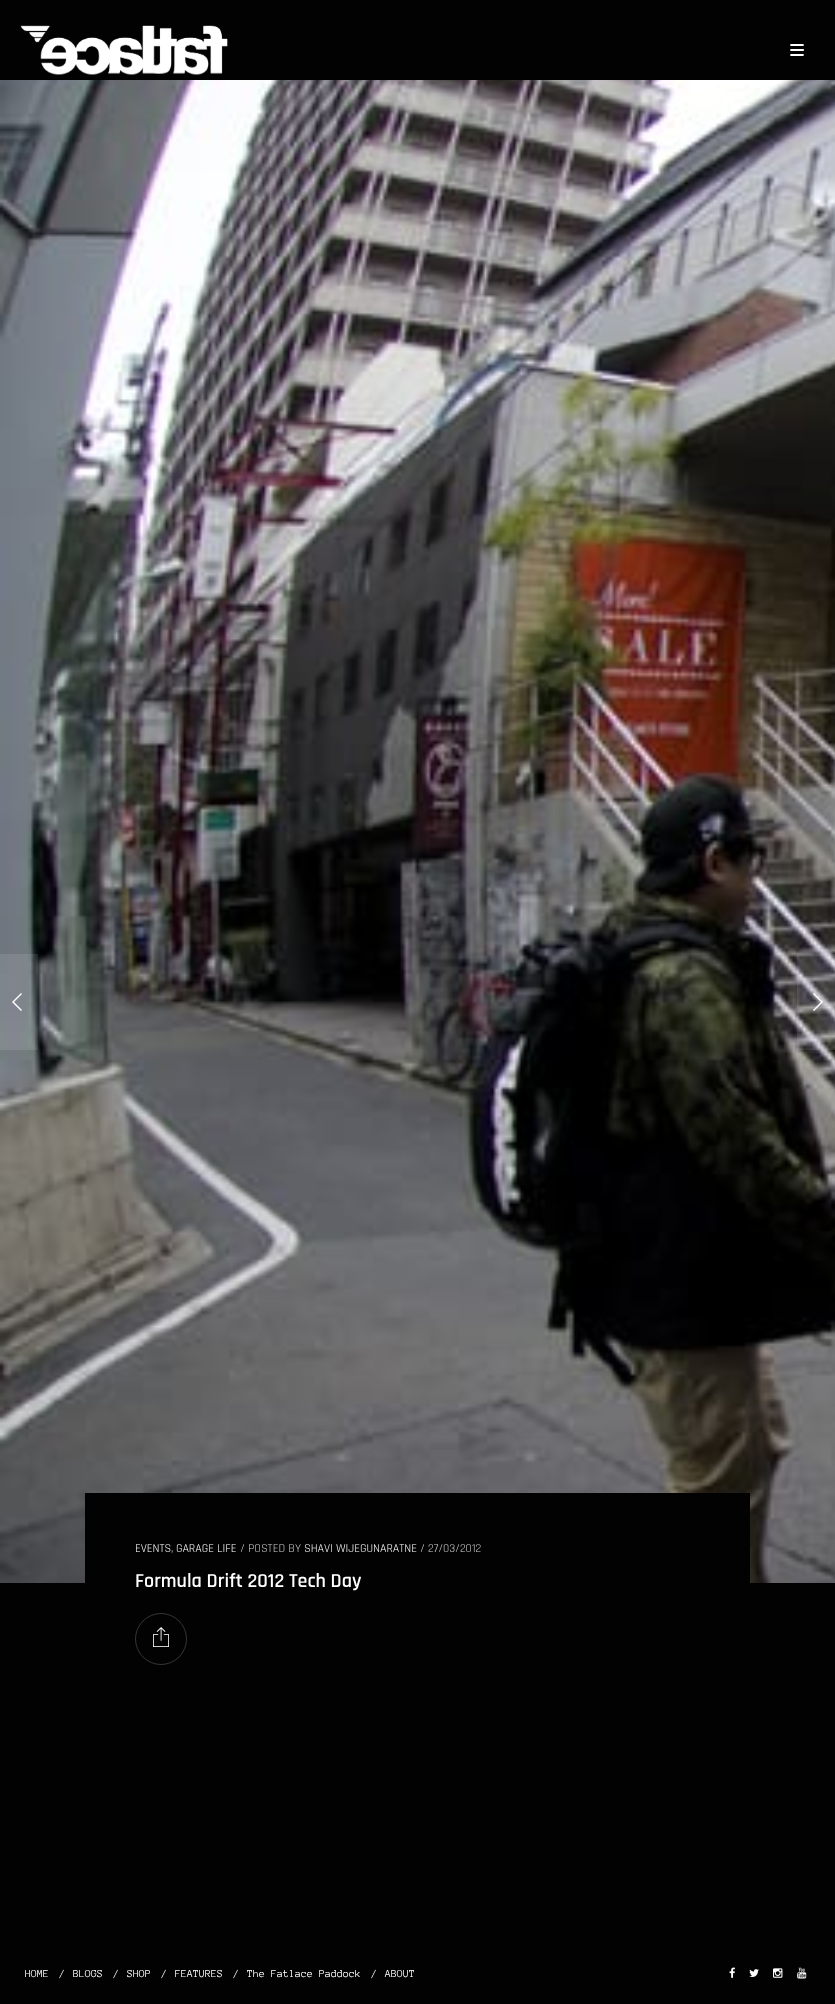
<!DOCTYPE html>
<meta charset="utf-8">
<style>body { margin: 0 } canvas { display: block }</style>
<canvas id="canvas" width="835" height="2004"></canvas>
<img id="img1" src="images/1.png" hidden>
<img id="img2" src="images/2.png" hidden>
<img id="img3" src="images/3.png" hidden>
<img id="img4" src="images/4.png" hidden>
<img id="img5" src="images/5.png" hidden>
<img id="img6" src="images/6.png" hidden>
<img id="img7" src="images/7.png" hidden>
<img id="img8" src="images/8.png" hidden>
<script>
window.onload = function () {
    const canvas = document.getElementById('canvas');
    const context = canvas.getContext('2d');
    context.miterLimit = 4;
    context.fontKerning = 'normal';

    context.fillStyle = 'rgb(2, 2, 2)';
    context.fillRect(0, 0, 835, 2004);
    context.drawImage(document.getElementById('img1'), 20, 25, 208, 50);
    context.drawImage(document.getElementById('img2'), 790, 44, 14, 12);
    context.drawImage(document.getElementById('img3'), 0, 80, 835, 1503);
    context.fillStyle = 'rgba(255, 255, 255, 0.1)';
    context.fillRect(0, 954, 38, 96);
    context.fillStyle = 'rgb(255, 255, 255)';
    context.beginPath();
    context.moveTo(22, 994);
    context.lineTo(21, 993);
    context.lineTo(12, 1002);
    context.lineTo(21, 1011);
    context.lineTo(22, 1010);
    context.lineTo(14, 1002);
    context.closePath();
    context.fill('evenodd');
    context.fillStyle = 'rgba(255, 255, 255, 0.1)';
    context.fillRect(797, 954, 38, 96);
    context.fillStyle = 'rgb(255, 255, 255)';
    context.beginPath();
    context.moveTo(813, 1010);
    context.lineTo(814, 1011);
    context.lineTo(823, 1002);
    context.lineTo(814, 993);
    context.lineTo(813, 994);
    context.lineTo(821, 1002);
    context.closePath();
    context.fill('evenodd');
    context.fillStyle = 'rgb(2, 2, 2)';
    context.fillRect(85, 1493, 665, 90);
    context.beginPath();
    context.arc(161, 1639, 25.5, 0, 2 * Math.PI);
    context.strokeStyle = 'rgb(53, 53, 53)';
    context.stroke();
    context.drawImage(document.getElementById('img4'), 153, 1627, 16, 20);
    context.drawImage(document.getElementById('img5'), 729, 1967, 6, 11);
    context.drawImage(document.getElementById('img6'), 749, 1969, 10, 8);
    context.drawImage(document.getElementById('img7'), 773, 1968, 10, 10);
    context.drawImage(document.getElementById('img8'), 797, 1967, 10, 12);
    context.font = '12px Rajdhani';
    context.fillStyle = 'rgb(255, 255, 255)';
    context.fillText('EVENTS', 135, 1552);
    context.fillStyle = 'rgb(204, 204, 204)';
    context.fillText(',', 171, 1552);
    context.fillStyle = 'rgb(255, 255, 255)';
    context.fillText('GARAGE LIFE', 176, 1552);
    context.fillStyle = 'rgb(204, 204, 204)';
    context.fillText('/ POSTED BY', 240, 1552);
    context.fillStyle = 'rgb(255, 255, 255)';
    context.fillText('SHAVI WIJEGUNARATNE', 304, 1552);
    context.fillStyle = 'rgb(204, 204, 204)';
    context.fillText('/ 27/03/2012', 420, 1552);
    context.font = '600 20px Rajdhani';
    context.fillStyle = 'rgb(255, 255, 255)';
    context.fillText('Formula Drift 2012 Tech Day', 135, 1587);
    context.font = '11px Anonymous Pro';
    context.fillText('HOME', 25, 1977);
    context.fillText('/', 59, 1977);
    context.fillText('BLOGS', 73, 1977);
    context.fillText('/', 113, 1977);
    context.fillText('SHOP', 127, 1977);
    context.fillText('/', 161, 1977);
    context.fillText('FEATURES', 175, 1977);
    context.fillText('/', 233, 1977);
    context.fillText('The Fatlace Paddock', 247, 1977);
    context.fillText('/', 371, 1977);
    context.fillText('ABOUT', 385, 1977);
};
</script>
